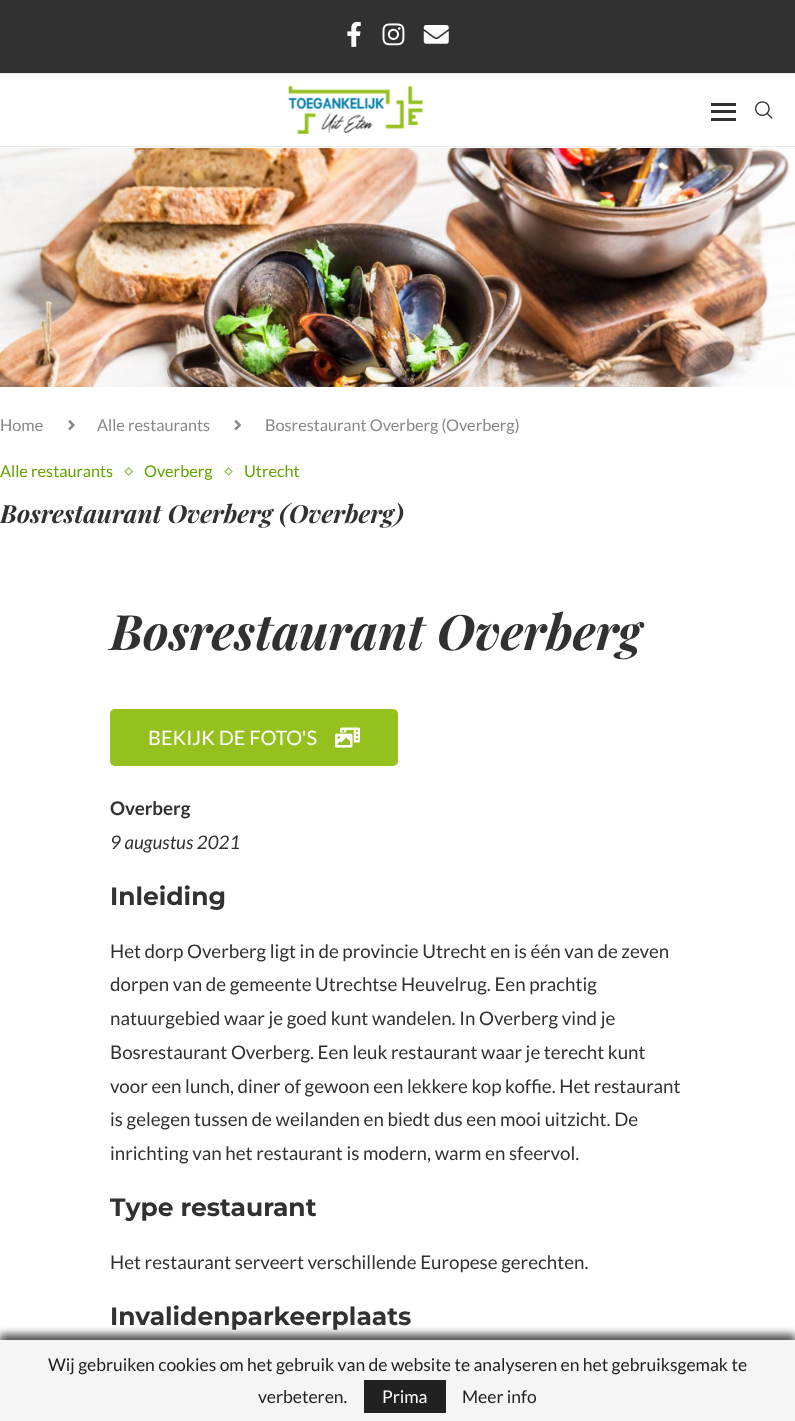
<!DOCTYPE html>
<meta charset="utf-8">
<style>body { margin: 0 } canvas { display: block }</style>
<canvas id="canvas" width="795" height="1421"></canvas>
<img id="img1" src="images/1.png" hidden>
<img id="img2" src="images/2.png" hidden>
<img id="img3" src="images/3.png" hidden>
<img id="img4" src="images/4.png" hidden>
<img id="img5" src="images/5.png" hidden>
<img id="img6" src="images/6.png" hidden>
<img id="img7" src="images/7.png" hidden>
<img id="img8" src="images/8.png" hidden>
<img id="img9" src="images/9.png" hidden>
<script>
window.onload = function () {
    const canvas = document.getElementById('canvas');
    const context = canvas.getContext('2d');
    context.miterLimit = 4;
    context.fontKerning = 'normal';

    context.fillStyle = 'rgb(255, 255, 255)';
    context.fillRect(0, 0, 795, 1421);
    context.fillStyle = 'rgb(49, 49, 49)';
    context.fillRect(0, 0, 795, 73);
    context.drawImage(document.getElementById('img1'), 347, 21, 14, 26);
    context.drawImage(document.getElementById('img2'), 382, 23, 23, 23);
    context.drawImage(document.getElementById('img3'), 423, 25, 26, 19);
    context.fillStyle = 'rgb(236, 236, 236)';
    context.fillRect(0, 73, 795, 1);
    context.fillRect(0, 146, 795, 1);
    context.drawImage(document.getElementById('img4'), 288, 85, 135, 49);
    context.fillStyle = 'rgb(49, 49, 49)';
    context.fillRect(711, 103, 25, 3);
    context.fillRect(711, 118, 25, 3);
    context.fillRect(711, 110, 25, 3);
    context.drawImage(document.getElementById('img5'), 755, 101, 18, 18);
    context.drawImage(document.getElementById('img6'), 0, 148, 795, 239);
    context.drawImage(document.getElementById('img7'), 68, 420, 7, 11);
    context.drawImage(document.getElementById('img8'), 234, 420, 7, 11);
    context.beginPath();
    context.moveTo(128.5, 468);
    context.lineTo(132.5, 471.5);
    context.lineTo(128.5, 475);
    context.lineTo(125, 471.5);
    context.closePath();
    context.strokeStyle = 'rgb(154, 197, 89)';
    context.lineWidth = 1.3;
    context.stroke();
    context.beginPath();
    context.moveTo(228.5, 468);
    context.lineTo(232, 471.5);
    context.lineTo(228.5, 475);
    context.lineTo(225, 471.5);
    context.closePath();
    context.stroke();
    context.fillStyle = 'rgb(149, 193, 31)';
    context.beginPath();
    context.roundRect(110, 709, 288, 57, 5);
    context.fill();
    context.drawImage(document.getElementById('img9'), 335, 727, 25, 21);
    context.fillStyle = 'rgba(0, 0, 0, 0.45)';
    context.filter = 'blur(4.5px)';
    context.beginPath();
    context.rect(0, 1335, 795, 81);
    context.fill();
    context.filter = 'none';
    context.filter = 'blur(4.5px)';
    context.beginPath();
    context.rect(0, 1335, 795, 81);
    context.fill();
    context.filter = 'none';
    context.fillStyle = 'rgb(245, 245, 245)';
    context.fillRect(0, 1340, 795, 81);
    context.fillStyle = 'rgb(33, 33, 33)';
    context.fillRect(364, 1380, 82, 33);
    context.font = '16.25px Lato';
    context.fillStyle = 'rgb(136, 136, 136)';
    context.fillText('Home', 0, 431);
    context.fillText('Alle restaurants', 97, 431);
    context.fillText('Bosrestaurant Overberg (Overberg)', 265, 431);
    context.fillStyle = 'rgb(99, 165, 0)';
    context.fillText('Alle restaurants', 0, 477);
    context.fillText('Overberg', 144, 477);
    context.fillText('Utrecht', 244, 477);
    context.font = 'italic bold 25px Playfair Display';
    context.fillStyle = 'rgb(49, 49, 49)';
    context.fillText('Bosrestaurant Overberg (Overberg)', 0, 523);
    context.font = 'italic bold 48.75px Playfair Display';
    context.fillText('Bosrestaurant Overberg', 110, 650);
    context.font = '20px Lato';
    context.fillStyle = 'rgb(255, 255, 255)';
    context.fillText('BEKIJK DE FOTO\'S', 148, 745);
    context.font = 'bold 18.75px Lato';
    context.fillStyle = 'rgb(49, 49, 49)';
    context.fillText('Overberg', 110, 815);
    context.font = 'italic 18.75px Lato';
    context.fillText('9 augustus 2021', 110, 849);
    context.font = 'bold 25px Montserrat';
    context.fillText('Inleiding', 110, 905);
    context.font = '18.75px Lato';
    context.fillText('Het dorp Overberg ligt in de provincie Utrecht en is één van de zeven', 110, 958);
    context.fillText('dorpen van de gemeente Utrechtse Heuvelrug. Een prachtig', 110, 991);
    context.fillText('natuurgebied waar je goed kunt wandelen. In Overberg vind je', 110, 1025);
    context.fillText('Bosrestaurant Overberg. Een leuk restaurant waar je terecht kunt', 110, 1059);
    context.fillText('voor een lunch, diner of gewoon een lekkere kop koffie. Het restaurant', 110, 1093);
    context.fillText('is gelegen tussen de weilanden en biedt dus een mooi uitzicht. De', 110, 1126);
    context.fillText('inrichting van het restaurant is modern, warm en sfeervol.', 110, 1160);
    context.font = 'bold 25px Montserrat';
    context.fillText('Type restaurant', 110, 1216);
    context.font = '18.75px Lato';
    context.fillText('Het restaurant serveert verschillende Europese gerechten.', 110, 1269);
    context.font = 'bold 25px Montserrat';
    context.fillText('Invalidenparkeerplaats', 110, 1325);
    context.font = '17.5px Lato';
    context.fillStyle = 'rgb(33, 33, 33)';
    context.fillText('Wij gebruiken cookies om het gebruik van de website te analyseren en het gebruiksgemak te', 48, 1371);
    context.fillText('verbeteren.', 258, 1403);
    context.fillStyle = 'rgb(255, 255, 255)';
    context.fillText('Prima', 382, 1403);
    context.fillStyle = 'rgb(33, 33, 33)';
    context.fillText('Meer info', 462, 1403);
};
</script>
